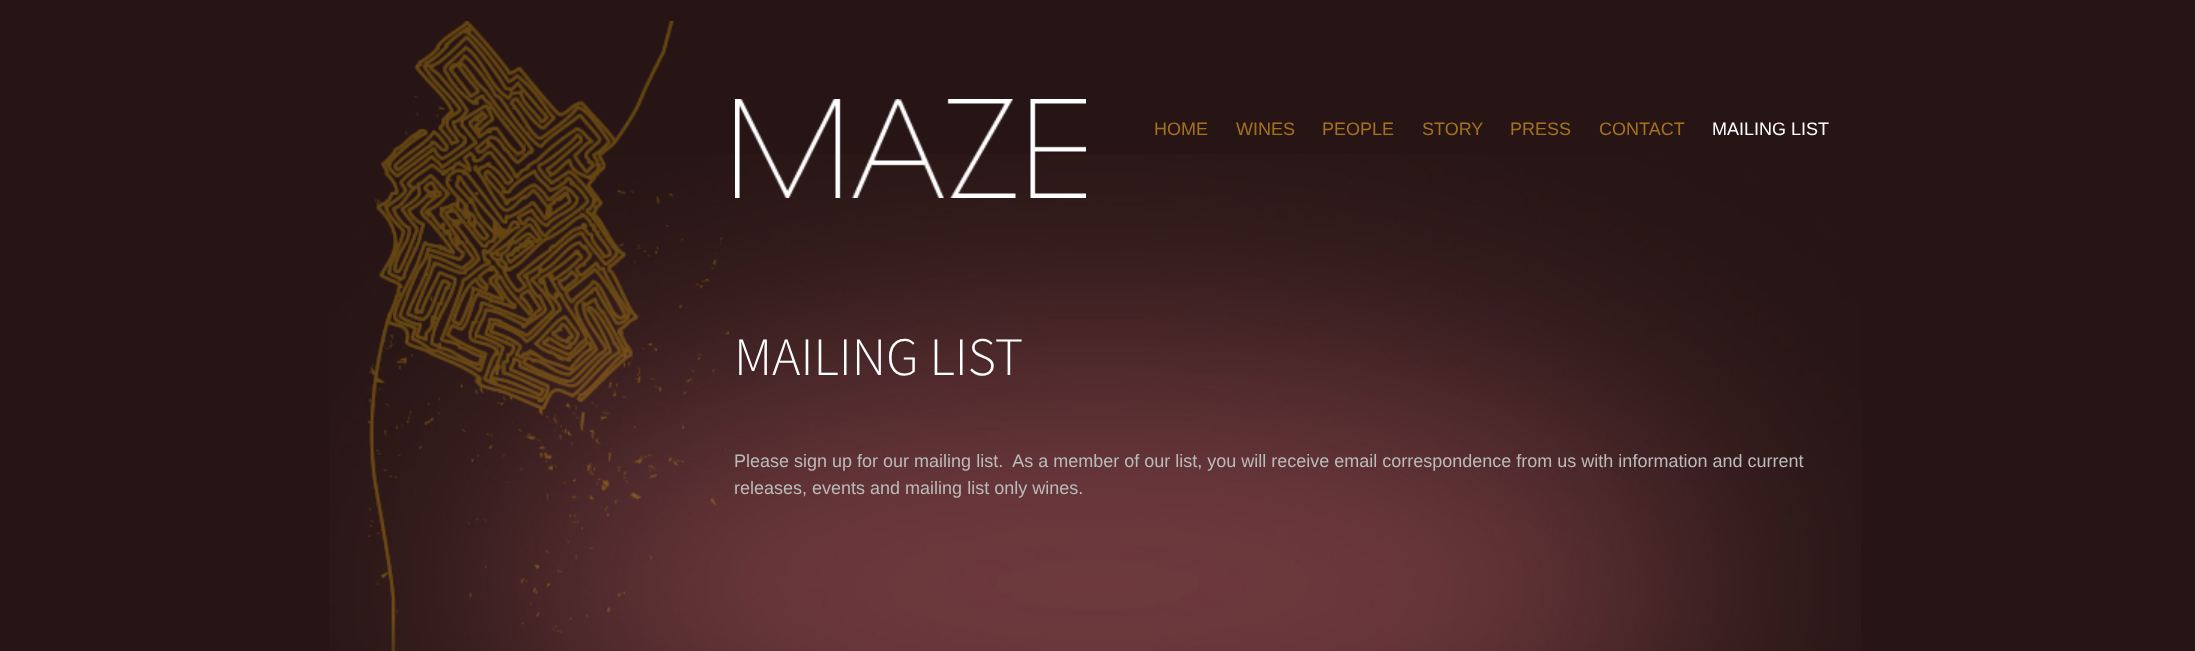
<!DOCTYPE html>
<meta charset="utf-8">
<style>body { margin: 0 } canvas { display: block }</style>
<canvas id="canvas" width="2195" height="651"></canvas>
<img id="img1" src="images/1.png" hidden>
<img id="img2" src="images/2.png" hidden>
<img id="img3" src="images/3.png" hidden>
<script>
window.onload = function () {
    const canvas = document.getElementById('canvas');
    const context = canvas.getContext('2d');
    context.miterLimit = 4;
    context.fontKerning = 'normal';

    context.fillStyle = 'rgb(39, 21, 21)';
    context.fillRect(0, 0, 2195, 651);
    context.drawImage(document.getElementById('img1'), 329, 154, 1532, 497);
    context.drawImage(document.getElementById('img2'), 367, 21, 362, 630);
    context.drawImage(document.getElementById('img3'), 735, 99, 351, 99);
    context.font = '18px Liberation Sans';
    context.fillStyle = 'rgb(165, 114, 31)';
    context.fillText('HOME', 1154, 135);
    context.fillText('WINES', 1236, 135);
    context.fillText('PEOPLE', 1322, 135);
    context.fillText('STORY', 1422, 135);
    context.fillText('PRESS', 1510, 135);
    context.fillText('CONTACT', 1599, 135);
    context.fillStyle = 'rgb(255, 255, 255)';
    context.fillText('MAILING LIST', 1712, 135);
    context.font = '300 54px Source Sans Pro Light';
    context.fillText('MAILING LIST', 734, 375);
    context.font = '18px Liberation Sans';
    context.fillStyle = 'rgb(187, 187, 187)';
    context.fillText('Please sign up for our mailing list.  As a member of our list, you will receive email correspondence from us with information and current', 734, 467);
    context.fillText('releases, events and mailing list only wines.', 734, 494);
};
</script>
